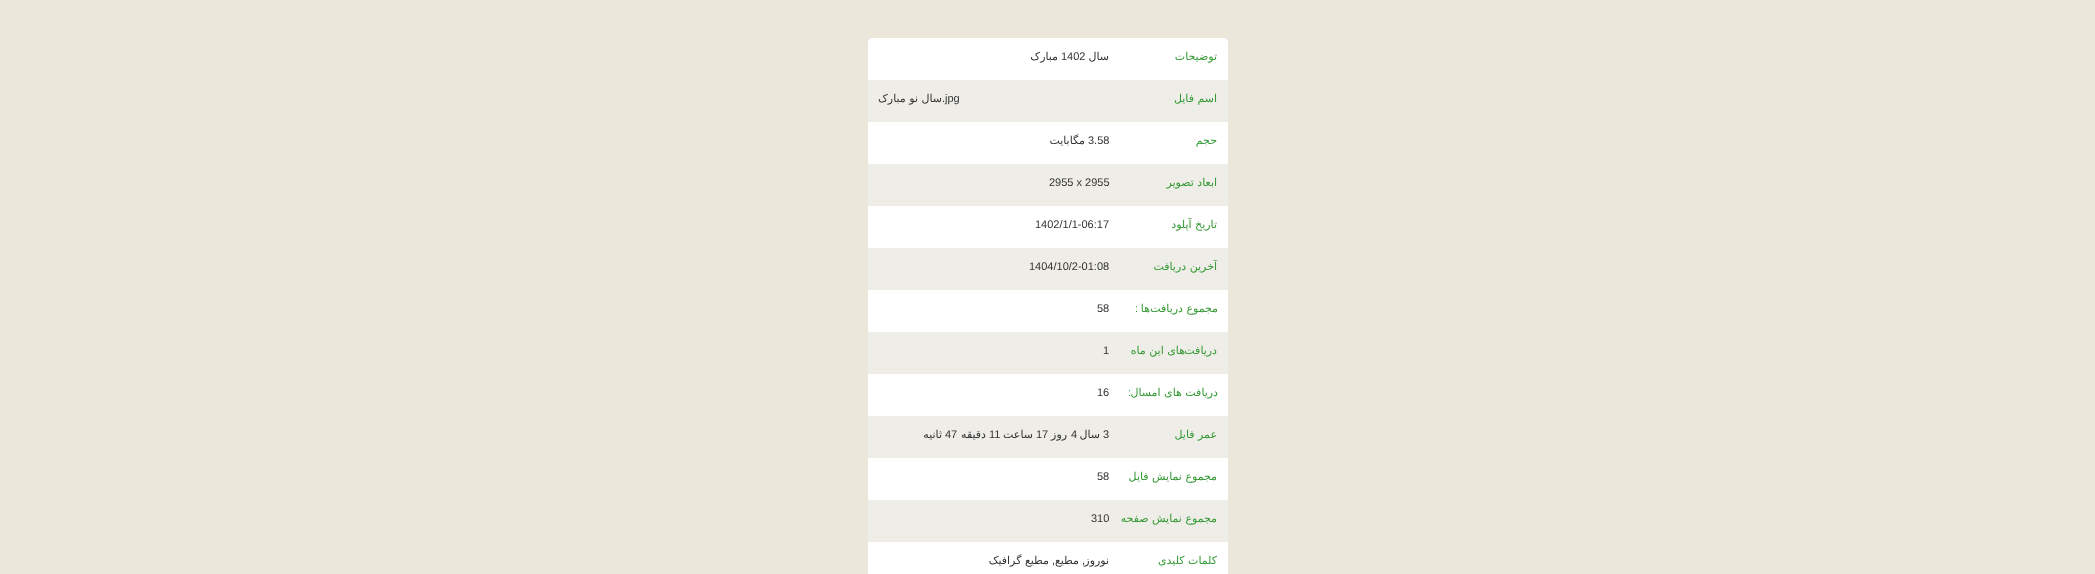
<!DOCTYPE html>
<meta charset="utf-8">
<style>body { margin: 0 } canvas { display: block }</style>
<canvas id="canvas" width="2095" height="574"></canvas>
<img id="img1" src="images/1.png" hidden>
<img id="img2" src="images/2.png" hidden>
<script>
window.onload = function () {
    const canvas = document.getElementById('canvas');
    const context = canvas.getContext('2d');
    context.miterLimit = 4;
    context.fontKerning = 'normal';

    context.fillStyle = 'rgb(235, 231, 218)';
    context.fillRect(0, 0, 2095, 574);
    context.fillStyle = 'rgb(255, 255, 255)';
    context.fillRect(868, 38, 360, 536);
    context.drawImage(document.getElementById('img1'), 1224, 38, 4, 3);
    context.drawImage(document.getElementById('img2'), 868, 38, 4, 3);
    context.fillStyle = 'rgb(238, 237, 231)';
    context.fillRect(868, 80, 360, 42);
    context.fillRect(868, 164, 360, 42);
    context.fillRect(868, 248, 360, 42);
    context.fillRect(868, 332, 360, 42);
    context.fillRect(868, 416, 360, 42);
    context.fillRect(868, 500, 360, 42);
    context.direction = 'rtl';
    context.font = '11px DejaVu Sans';
    context.fillStyle = 'rgb(51, 153, 51)';
    context.fillText('توضیحات', 1217, 60);
    context.fillStyle = 'rgb(51, 51, 51)';
    context.fillText('سال', 1109, 60);
    context.direction = 'ltr';
    context.font = '11px Liberation Sans';
    context.fillText('1402', 1061, 60);
    context.direction = 'rtl';
    context.font = '11px DejaVu Sans';
    context.fillText('مبارک', 1058, 60);
    context.fillStyle = 'rgb(51, 153, 51)';
    context.fillText('اسم فایل', 1217, 102);
    context.direction = 'ltr';
    context.font = '11px Liberation Sans';
    context.fillStyle = 'rgb(51, 51, 51)';
    context.fillText('.jpg', 942, 102);
    context.direction = 'rtl';
    context.font = '11px DejaVu Sans';
    context.fillText('سال نو مبارک', 942, 102);
    context.fillStyle = 'rgb(51, 153, 51)';
    context.fillText('حجم', 1217, 144);
    context.direction = 'ltr';
    context.font = '11px Liberation Sans';
    context.fillStyle = 'rgb(51, 51, 51)';
    context.fillText('3.58', 1088, 144);
    context.direction = 'rtl';
    context.font = '11px DejaVu Sans';
    context.fillText('مگابایت', 1085, 144);
    context.fillStyle = 'rgb(51, 153, 51)';
    context.fillText('ابعاد تصویر', 1217, 186);
    context.direction = 'ltr';
    context.font = '11px Liberation Sans';
    context.fillStyle = 'rgb(51, 51, 51)';
    context.fillText('2955 x 2955', 1049, 186);
    context.direction = 'rtl';
    context.font = '11px DejaVu Sans';
    context.fillStyle = 'rgb(51, 153, 51)';
    context.fillText('تاریخ آپلود', 1217, 228);
    context.direction = 'ltr';
    context.font = '11px Liberation Sans';
    context.fillStyle = 'rgb(51, 51, 51)';
    context.fillText('1402/1/1-06:17', 1035, 228);
    context.direction = 'rtl';
    context.font = '11px DejaVu Sans';
    context.fillStyle = 'rgb(51, 153, 51)';
    context.fillText('آخرین دریافت', 1217, 270);
    context.direction = 'ltr';
    context.font = '11px Liberation Sans';
    context.fillStyle = 'rgb(51, 51, 51)';
    context.fillText('1404/10/2-01:08', 1029, 270);
    context.direction = 'rtl';
    context.font = '11px DejaVu Sans';
    context.fillStyle = 'rgb(51, 153, 51)';
    context.fillText('مجموع دریافت', 1218, 312);
    context.fillText('ها', 1150, 312);
    context.font = '11px Liberation Sans';
    context.fillText(':', 1138, 312);
    context.direction = 'ltr';
    context.fillStyle = 'rgb(51, 51, 51)';
    context.fillText('58', 1097, 312);
    context.direction = 'rtl';
    context.font = '11px DejaVu Sans';
    context.fillStyle = 'rgb(51, 153, 51)';
    context.fillText('های این ماه', 1185, 354);
    context.fillText('دریافت', 1217, 354);
    context.direction = 'ltr';
    context.font = '11px Liberation Sans';
    context.fillStyle = 'rgb(51, 51, 51)';
    context.fillText('1', 1103, 354);
    context.direction = 'rtl';
    context.font = '11px DejaVu Sans';
    context.fillStyle = 'rgb(51, 153, 51)';
    context.fillText('دریافت های امسال', 1218, 396);
    context.font = '11px Liberation Sans';
    context.fillText(':', 1131, 396);
    context.direction = 'ltr';
    context.fillStyle = 'rgb(51, 51, 51)';
    context.fillText('16', 1097, 396);
    context.direction = 'rtl';
    context.font = '11px DejaVu Sans';
    context.fillStyle = 'rgb(51, 153, 51)';
    context.fillText('عمر فایل', 1217, 438);
    context.direction = 'ltr';
    context.font = '11px Liberation Sans';
    context.fillStyle = 'rgb(51, 51, 51)';
    context.fillText('3', 1103, 438);
    context.direction = 'rtl';
    context.font = '11px DejaVu Sans';
    context.fillText('سال', 1100, 438);
    context.direction = 'ltr';
    context.font = '11px Liberation Sans';
    context.fillText('4', 1071, 438);
    context.direction = 'rtl';
    context.font = '11px DejaVu Sans';
    context.fillText('روز', 1067, 438);
    context.direction = 'ltr';
    context.font = '11px Liberation Sans';
    context.fillText('17', 1036, 438);
    context.direction = 'rtl';
    context.font = '11px DejaVu Sans';
    context.fillText('ساعت', 1033, 438);
    context.direction = 'ltr';
    context.font = '11px Liberation Sans';
    context.fillText('11', 989, 438);
    context.direction = 'rtl';
    context.font = '11px DejaVu Sans';
    context.fillText('دقیقه', 986, 438);
    context.direction = 'ltr';
    context.font = '11px Liberation Sans';
    context.fillText('47', 945, 438);
    context.direction = 'rtl';
    context.font = '11px DejaVu Sans';
    context.fillText('ثانیه', 942, 438);
    context.fillStyle = 'rgb(51, 153, 51)';
    context.fillText('مجموع نمایش فایل', 1217, 480);
    context.direction = 'ltr';
    context.font = '11px Liberation Sans';
    context.fillStyle = 'rgb(51, 51, 51)';
    context.fillText('58', 1097, 480);
    context.direction = 'rtl';
    context.font = '11px DejaVu Sans';
    context.fillStyle = 'rgb(51, 153, 51)';
    context.fillText('مجموع نمایش صفحه', 1217, 522);
    context.direction = 'ltr';
    context.font = '11px Liberation Sans';
    context.fillStyle = 'rgb(51, 51, 51)';
    context.fillText('310', 1091, 522);
    context.direction = 'rtl';
    context.font = '11px DejaVu Sans';
    context.fillStyle = 'rgb(51, 153, 51)';
    context.fillText('کلمات کلیدی', 1217, 564);
    context.fillStyle = 'rgb(51, 51, 51)';
    context.fillText('نوروز', 1109, 564);
    context.font = '11px Liberation Sans';
    context.fillText(',', 1085, 564);
    context.font = '11px DejaVu Sans';
    context.fillText('مطیع', 1079, 564);
    context.font = '11px Liberation Sans';
    context.fillText(',', 1055, 564);
    context.font = '11px DejaVu Sans';
    context.fillText('مطیع گرافیک', 1049, 564);
};
</script>
